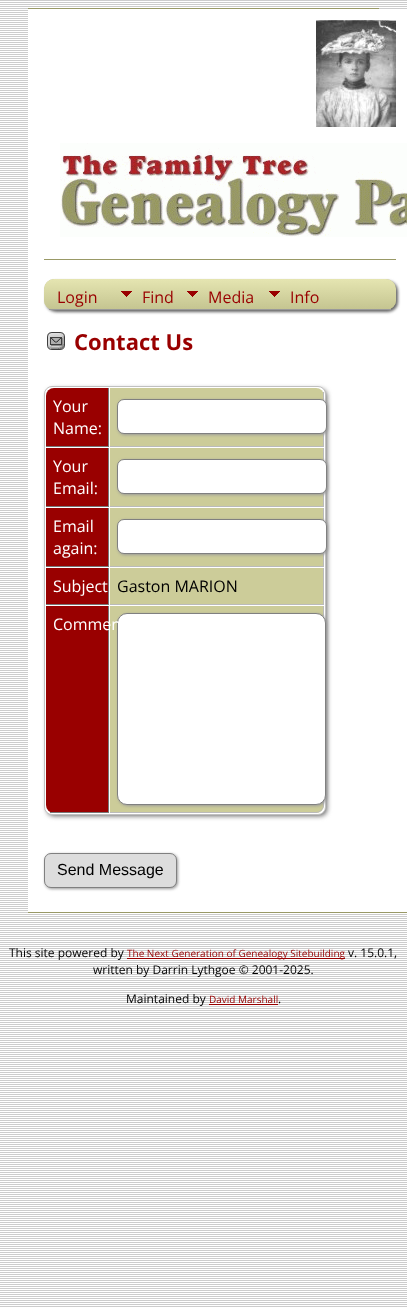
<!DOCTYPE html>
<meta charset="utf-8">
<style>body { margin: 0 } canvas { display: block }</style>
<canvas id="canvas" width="407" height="1307"></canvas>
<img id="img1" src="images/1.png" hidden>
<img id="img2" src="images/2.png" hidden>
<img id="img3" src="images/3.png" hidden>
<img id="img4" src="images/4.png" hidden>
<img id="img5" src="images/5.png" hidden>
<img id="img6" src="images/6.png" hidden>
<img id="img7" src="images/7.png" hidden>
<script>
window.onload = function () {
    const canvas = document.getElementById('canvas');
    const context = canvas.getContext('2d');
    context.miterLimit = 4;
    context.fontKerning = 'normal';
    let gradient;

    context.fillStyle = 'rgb(255, 255, 255)';
    context.fillRect(0, 0, 407, 1307);
    context.drawImage(document.getElementById('img1'), 0, 0, 407, 1307);
    context.fillStyle = 'rgb(153, 153, 102)';
    context.fillRect(28, 8, 351, 1);
    context.fillStyle = 'rgb(255, 255, 255)';
    context.fillRect(28, 10, 379, 901);
    context.fillStyle = 'rgb(153, 153, 102)';
    context.fillRect(28, 912, 379, 1);
    context.drawImage(document.getElementById('img2'), 316, 20, 80, 107);
    context.drawImage(document.getElementById('img3'), 60, 143, 347, 94);
    context.fillRect(44, 259, 352, 1);
    context.fillStyle = 'rgb(102, 102, 102)';
    context.filter = 'blur(1.5px)';
    context.beginPath();
    context.roundRect(46, 281, 352, 31, 10);
    context.fill();
    context.filter = 'none';
    context.fillStyle = 'rgb(204, 204, 153)';
    context.beginPath();
    context.roundRect(44, 279, 352, 31, 10);
    context.fill();
    context.save();
    context.beginPath();
    context.roundRect(44, 279, 352, 31, 10);
    context.clip();
    gradient = context.createLinearGradient(220, 279, 220, 309);
    gradient.addColorStop(0, 'rgb(229, 229, 177)');
    gradient.addColorStop(1, 'rgb(197, 197, 145)');
    context.fillStyle = gradient;
    context.beginPath();
    context.roundRect(44, 279, 352, 30, [10, 10, 0, 0]);
    context.fill();
    context.restore();
    context.fillStyle = 'rgb(153, 153, 153)';
    context.fillRect(49, 309, 342, 1);
    context.drawImage(document.getElementById('img4'), 112, 279, 66, 30);
    context.drawImage(document.getElementById('img5'), 178, 279, 82, 30);
    context.drawImage(document.getElementById('img6'), 260, 279, 64, 30);
    context.drawImage(document.getElementById('img7'), 47, 332, 18, 18);
    context.fillStyle = 'rgb(102, 102, 102)';
    context.filter = 'blur(2.5px)';
    context.beginPath();
    context.roundRect(47, 389, 280, 427, 7);
    context.fill();
    context.filter = 'none';
    context.fillStyle = 'rgb(255, 255, 255)';
    context.beginPath();
    context.roundRect(44.5, 386.5, 281, 428, 7.5);
    context.fill();
    context.strokeStyle = 'rgb(192, 192, 192)';
    context.stroke();
    context.fillStyle = 'rgb(153, 0, 0)';
    context.beginPath();
    context.roundRect(46, 388, 63, 59, [8, 0, 0, 0]);
    context.fill();
    context.fillStyle = 'rgb(119, 119, 119)';
    context.fillRect(108, 388, 1, 59);
    context.fillRect(46, 446, 63, 1);
    context.fillStyle = 'rgb(204, 204, 153)';
    context.beginPath();
    context.roundRect(110, 388, 214, 59, [0, 8, 0, 0]);
    context.fill();
    context.fillStyle = 'rgb(187, 187, 187)';
    context.fillRect(323, 392, 1, 55);
    context.fillRect(110, 446, 214, 1);
    context.fillStyle = 'rgb(153, 153, 153)';
    context.filter = 'blur(1.5px)';
    context.beginPath();
    context.roundRect(118, 400, 210, 35, 7);
    context.fill();
    context.filter = 'none';
    context.fillStyle = 'rgb(255, 255, 255)';
    context.beginPath();
    context.roundRect(117.5, 399.5, 209, 34, 6.5);
    context.fill();
    context.strokeStyle = 'rgb(128, 128, 128)';
    context.stroke();
    context.fillStyle = 'rgb(153, 0, 0)';
    context.fillRect(46, 448, 62, 58);
    context.fillStyle = 'rgb(119, 119, 119)';
    context.fillRect(108, 448, 1, 59);
    context.fillRect(46, 506, 63, 1);
    context.fillStyle = 'rgb(204, 204, 153)';
    context.fillRect(110, 448, 213, 58);
    context.fillStyle = 'rgb(187, 187, 187)';
    context.fillRect(323, 448, 1, 59);
    context.fillRect(110, 506, 214, 1);
    context.fillStyle = 'rgb(153, 153, 153)';
    context.filter = 'blur(1.5px)';
    context.beginPath();
    context.roundRect(118, 460, 210, 35, 7);
    context.fill();
    context.filter = 'none';
    context.fillStyle = 'rgb(255, 255, 255)';
    context.beginPath();
    context.roundRect(117.5, 459.5, 209, 34, 6.5);
    context.fill();
    context.stroke();
    context.fillStyle = 'rgb(153, 0, 0)';
    context.fillRect(46, 508, 62, 58);
    context.fillStyle = 'rgb(119, 119, 119)';
    context.fillRect(108, 508, 1, 59);
    context.fillRect(46, 566, 63, 1);
    context.fillStyle = 'rgb(204, 204, 153)';
    context.fillRect(110, 508, 213, 58);
    context.fillStyle = 'rgb(187, 187, 187)';
    context.fillRect(323, 508, 1, 59);
    context.fillRect(110, 566, 214, 1);
    context.fillStyle = 'rgb(153, 153, 153)';
    context.filter = 'blur(1.5px)';
    context.beginPath();
    context.roundRect(118, 520, 210, 35, 7);
    context.fill();
    context.filter = 'none';
    context.fillStyle = 'rgb(255, 255, 255)';
    context.beginPath();
    context.roundRect(117.5, 519.5, 209, 34, 6.5);
    context.fill();
    context.stroke();
    context.fillStyle = 'rgb(153, 0, 0)';
    context.fillRect(46, 568, 62, 36);
    context.fillStyle = 'rgb(119, 119, 119)';
    context.fillRect(108, 568, 1, 37);
    context.fillRect(46, 604, 63, 1);
    context.fillStyle = 'rgb(204, 204, 153)';
    context.fillRect(110, 568, 213, 36);
    context.fillStyle = 'rgb(187, 187, 187)';
    context.fillRect(323, 568, 1, 37);
    context.fillRect(110, 604, 214, 1);
    context.fillStyle = 'rgb(153, 0, 0)';
    context.beginPath();
    context.roundRect(46, 606, 63, 207, [0, 0, 0, 8]);
    context.fill();
    context.fillStyle = 'rgb(119, 119, 119)';
    context.fillRect(108, 606, 1, 207);
    context.fillRect(50, 812, 59, 1);
    context.fillStyle = 'rgb(204, 204, 153)';
    context.beginPath();
    context.roundRect(110, 606, 214, 207, [0, 0, 8, 0]);
    context.fill();
    context.fillStyle = 'rgb(187, 187, 187)';
    context.beginPath();
    context.moveTo(110, 606);
    context.lineTo(324, 606);
    context.lineTo(324, 805);
    context.bezierCurveTo(324, 809, 320, 813, 316, 813);
    context.lineTo(110, 813);
    context.closePath();
    context.moveTo(110, 606);
    context.lineTo(323, 606);
    context.lineTo(323, 805);
    context.bezierCurveTo(323, 809, 320, 812, 316, 812);
    context.lineTo(110, 812);
    context.closePath();
    context.fill('evenodd');
    context.fillStyle = 'rgb(153, 153, 153)';
    context.filter = 'blur(1.5px)';
    context.beginPath();
    context.roundRect(118, 614, 209, 192, 10);
    context.fill();
    context.filter = 'none';
    context.fillStyle = 'rgb(255, 255, 255)';
    context.beginPath();
    context.roundRect(117.5, 613.5, 208, 191, 9.5);
    context.fill();
    context.stroke();
    context.fillStyle = 'rgb(153, 153, 153)';
    context.filter = 'blur(1.5px)';
    context.beginPath();
    context.roundRect(45, 854, 133, 35, 7);
    context.fill();
    context.filter = 'none';
    context.fillStyle = 'rgb(221, 221, 221)';
    context.beginPath();
    context.roundRect(44.5, 853.5, 132, 34, 6.5);
    context.fill();
    context.stroke();
    context.fillStyle = 'rgb(153, 0, 0)';
    context.fillRect(127, 958, 218, 1);
    context.fillRect(209, 1004, 69, 1);
    context.font = '16px Open Sans';
    context.fillText('Login', 57, 303);
    context.fillText('Find', 142, 303);
    context.fillText('Media', 208, 303);
    context.fillText('Info', 290, 303);
    context.font = 'bold 22px Open Sans';
    context.fillText('Contact Us', 74, 350);
    context.font = '16px Open Sans';
    context.fillStyle = 'rgb(255, 255, 255)';
    context.fillText('Your', 53, 412);
    context.fillText('Name:', 53, 434);
    context.fillText('Your', 53, 472);
    context.fillText('Email:', 53, 494);
    context.fillText('Email', 53, 532);
    context.fillText('again:', 53, 554);
    context.fillText('Subject', 53, 592);
    context.fillStyle = 'rgb(0, 0, 0)';
    context.fillText('Gaston MARION', 117, 592);
    context.fillStyle = 'rgb(255, 255, 255)';
    context.fillText('Commen', 53, 630);
    context.font = '16px Liberation Sans';
    context.fillStyle = 'rgb(0, 0, 0)';
    context.fillText('Send Message', 57, 875);
    context.font = '12px Open Sans';
    context.fillText('This site powered by', 9, 957);
    context.font = '10px Open Sans';
    context.fillStyle = 'rgb(153, 0, 0)';
    context.fillText('The Next Generation of Genealogy Sitebuilding', 127, 957);
    context.font = '12px Open Sans';
    context.fillStyle = 'rgb(0, 0, 0)';
    context.fillText('v. 15.0.1,', 348, 957);
    context.fillText('written by Darrin Lythgoe © 2001-2025.', 93, 974);
    context.fillText('Maintained by', 126, 1003);
    context.font = '10px Open Sans';
    context.fillStyle = 'rgb(153, 0, 0)';
    context.fillText('David Marshall', 209, 1003);
    context.font = '12px Open Sans';
    context.fillStyle = 'rgb(0, 0, 0)';
    context.fillText('.', 278, 1003);
};
</script>
